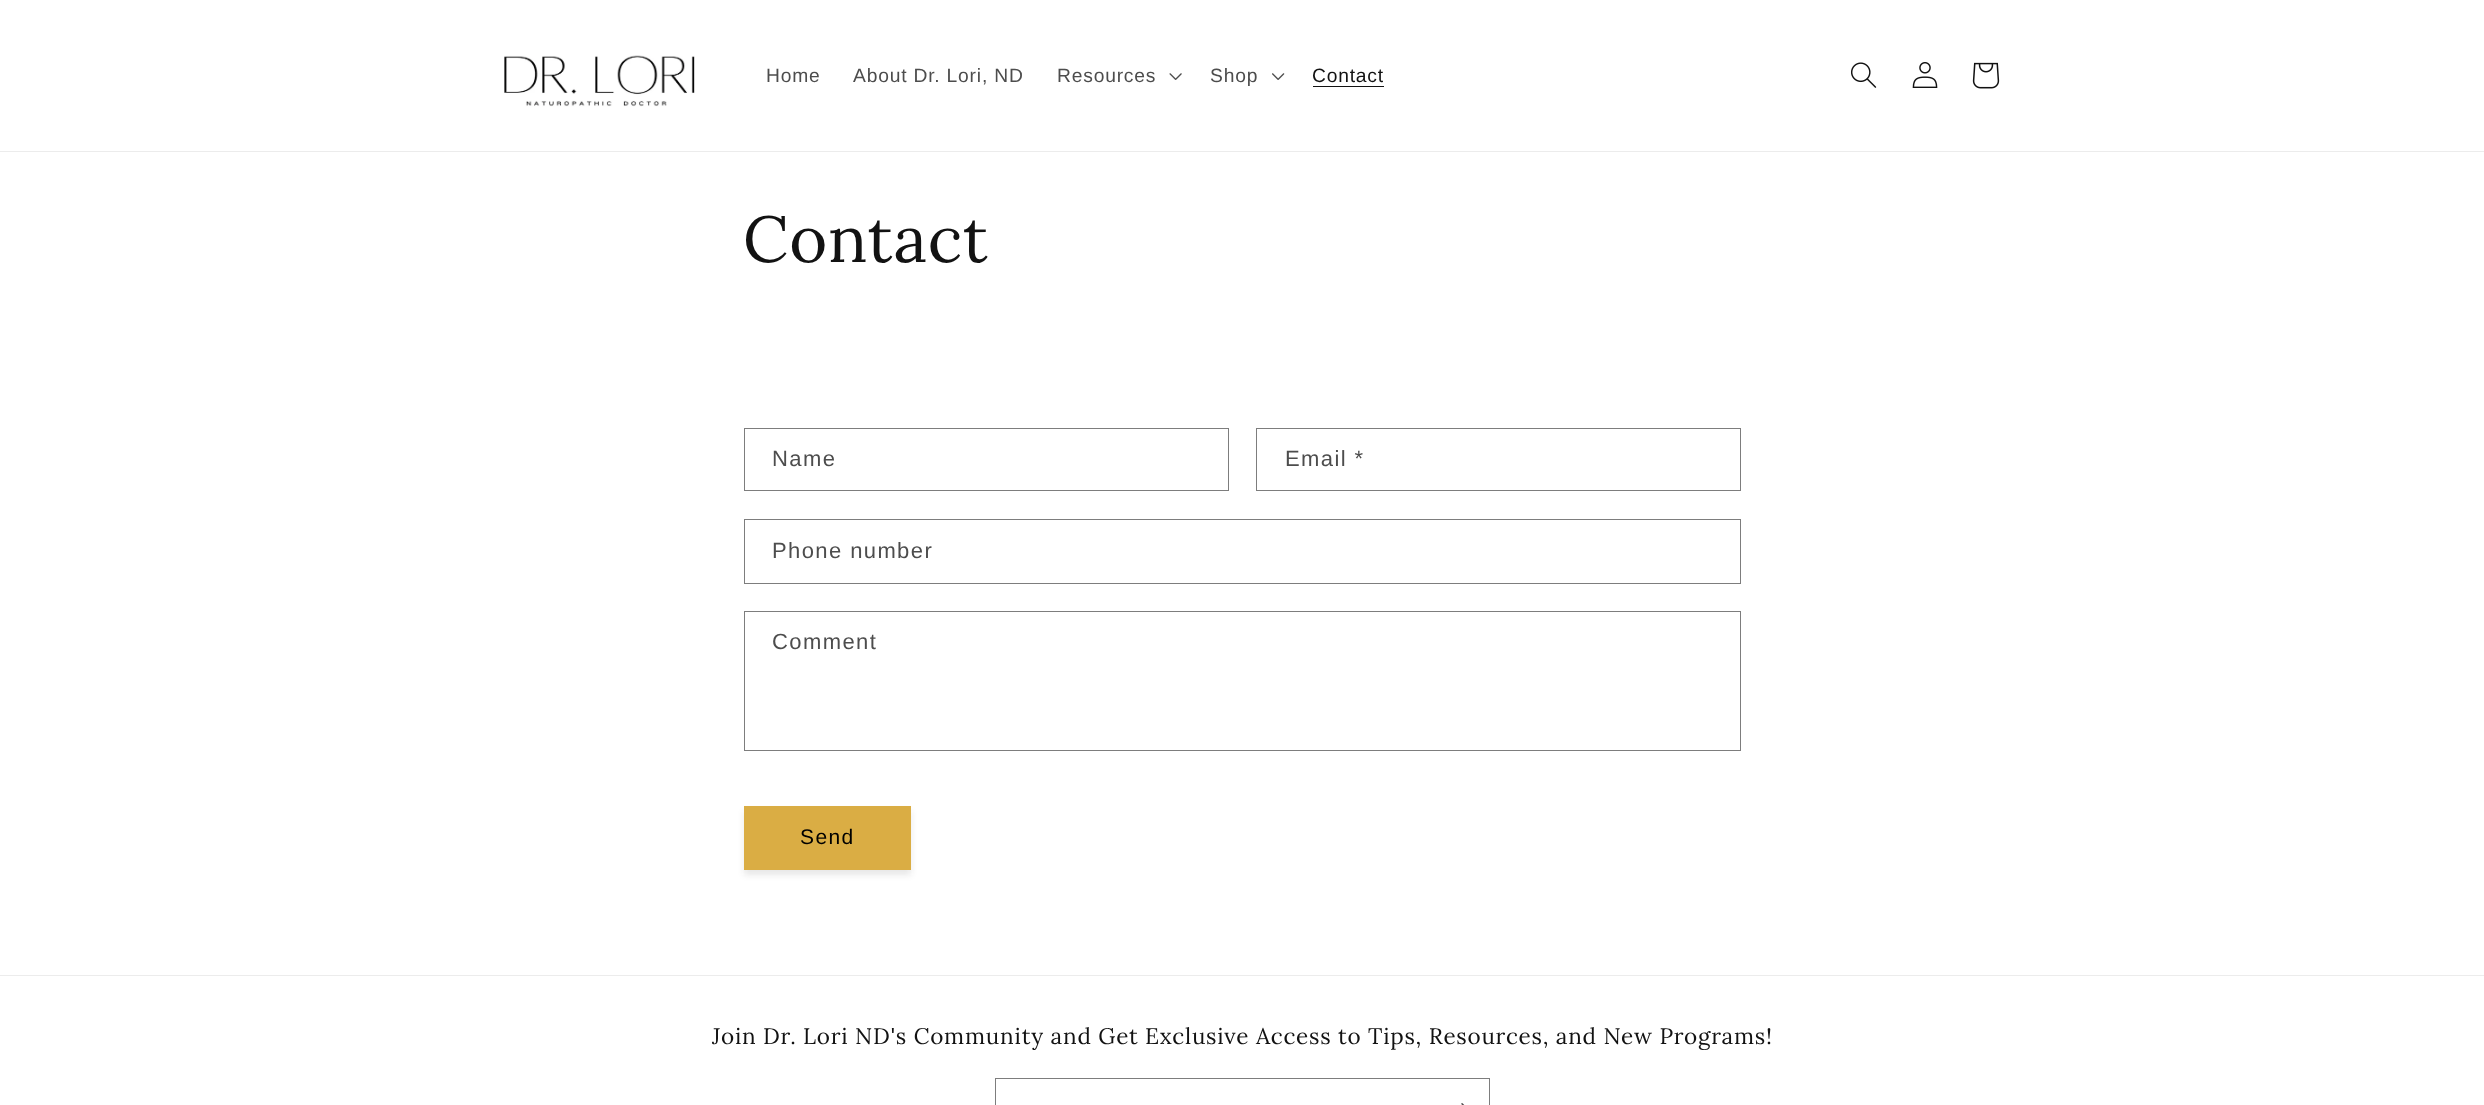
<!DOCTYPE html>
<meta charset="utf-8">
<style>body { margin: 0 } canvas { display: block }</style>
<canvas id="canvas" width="2484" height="1105"></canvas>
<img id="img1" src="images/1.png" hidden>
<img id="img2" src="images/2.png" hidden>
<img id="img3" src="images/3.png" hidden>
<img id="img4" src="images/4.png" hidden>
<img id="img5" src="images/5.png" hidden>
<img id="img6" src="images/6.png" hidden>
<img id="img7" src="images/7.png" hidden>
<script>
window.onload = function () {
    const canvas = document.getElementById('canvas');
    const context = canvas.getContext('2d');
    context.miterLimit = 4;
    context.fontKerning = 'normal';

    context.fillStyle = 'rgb(255, 255, 255)';
    context.fillRect(0, 0, 2484, 1105);
    context.fillStyle = 'rgb(236, 236, 236)';
    context.fillRect(0, 151, 2484, 1);
    context.drawImage(document.getElementById('img1'), 504, 55, 191, 52);
    context.drawImage(document.getElementById('img2'), 1169, 73, 13, 7);
    context.drawImage(document.getElementById('img3'), 1272, 73, 13, 7);
    context.fillStyle = 'rgb(18, 18, 18)';
    context.fillRect(1313, 86, 71, 1);
    context.drawImage(document.getElementById('img4'), 1851, 62, 26, 26);
    context.drawImage(document.getElementById('img5'), 1912, 62, 26, 26);
    context.drawImage(document.getElementById('img6'), 1972, 62, 28, 27);
    context.strokeStyle = 'rgb(125, 125, 125)';
    context.strokeRect(744.5, 428.5, 484, 62);
    context.strokeRect(1256.5, 428.5, 484, 62);
    context.strokeRect(744.5, 519.5, 996, 64);
    context.strokeRect(744.5, 611.5, 996, 139);
    context.fillStyle = 'rgba(18, 18, 18, 0.1)';
    context.filter = 'blur(3px)';
    context.beginPath();
    context.rect(744, 811, 167, 64);
    context.fill();
    context.filter = 'none';
    context.fillStyle = 'rgb(218, 173, 68)';
    context.fillRect(744, 806, 167, 64);
    context.fillStyle = 'rgb(236, 236, 236)';
    context.fillRect(0, 975, 2484, 1);
    context.strokeRect(995.5, 1078.5, 494, 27);
    context.drawImage(document.getElementById('img7'), 1461, 1103, 4, 2);
    context.letterSpacing = '0.8px';
    context.font = '19.25px Liberation Sans';
    context.fillStyle = 'rgb(77, 77, 77)';
    context.fillText('Home', 766, 82);
    context.fillText('About Dr. Lori, ND', 853, 82);
    context.fillText('Resources', 1057, 82);
    context.fillText('Shop', 1210, 82);
    context.fillStyle = 'rgb(18, 18, 18)';
    context.fillText('Contact', 1312, 82);
    context.letterSpacing = '0.75px';
    context.font = '65px Lora';
    context.fillText('Contact', 743, 262);
    context.letterSpacing = '1.4px';
    context.font = '22px Liberation Sans';
    context.fillStyle = 'rgb(77, 77, 77)';
    context.fillText('Name', 772, 466);
    context.fillText('Email *', 1285, 466);
    context.fillText('Phone number', 772, 558);
    context.fillText('Comment', 772, 649);
    context.font = '21px Liberation Sans';
    context.fillStyle = 'rgb(0, 0, 0)';
    context.fillText('Send', 800, 844);
    context.letterSpacing = '0.75px';
    context.font = '22.5px Lora';
    context.fillStyle = 'rgb(18, 18, 18)';
    context.fillText('Join Dr. Lori ND\'s Community and Get Exclusive Access to Tips, Resources, and New Programs!', 712, 1044);
};
</script>
